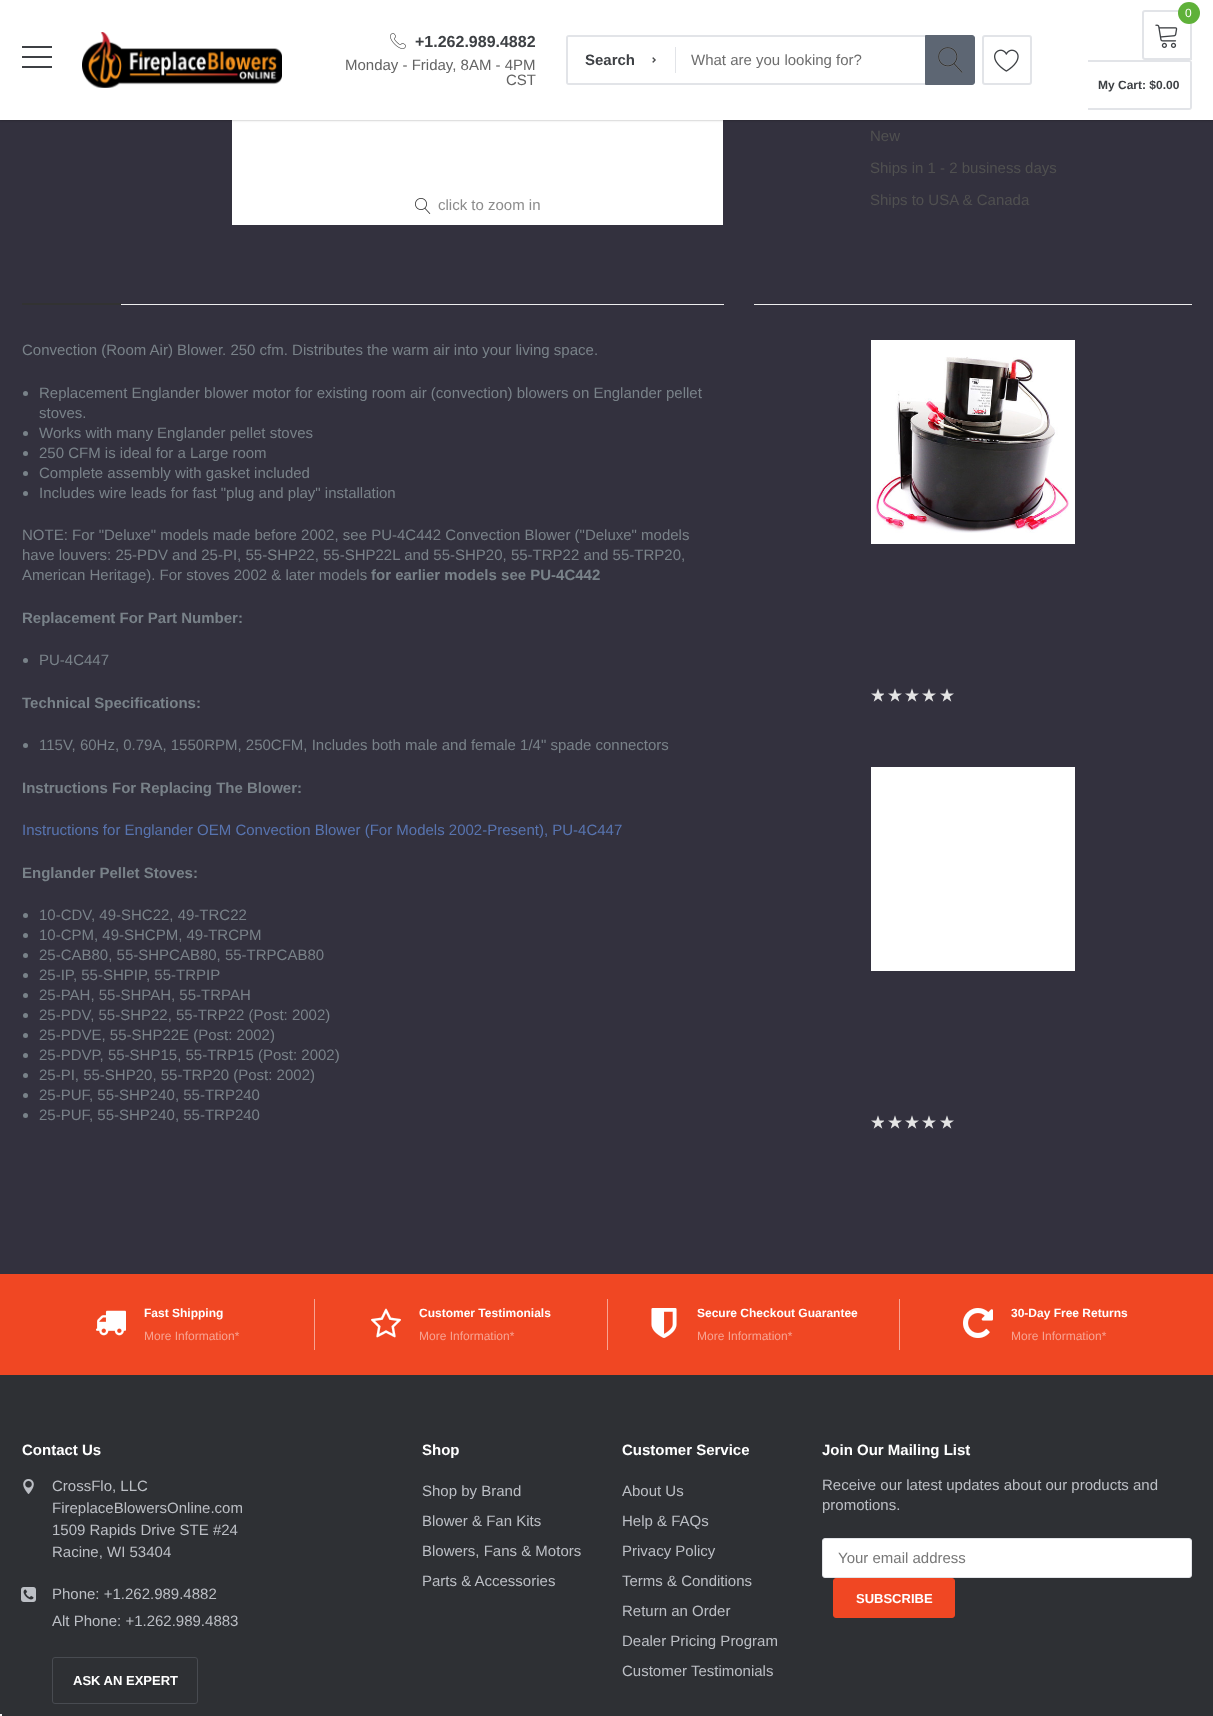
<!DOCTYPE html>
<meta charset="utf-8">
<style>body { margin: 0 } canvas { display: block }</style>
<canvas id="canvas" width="1213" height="1716"></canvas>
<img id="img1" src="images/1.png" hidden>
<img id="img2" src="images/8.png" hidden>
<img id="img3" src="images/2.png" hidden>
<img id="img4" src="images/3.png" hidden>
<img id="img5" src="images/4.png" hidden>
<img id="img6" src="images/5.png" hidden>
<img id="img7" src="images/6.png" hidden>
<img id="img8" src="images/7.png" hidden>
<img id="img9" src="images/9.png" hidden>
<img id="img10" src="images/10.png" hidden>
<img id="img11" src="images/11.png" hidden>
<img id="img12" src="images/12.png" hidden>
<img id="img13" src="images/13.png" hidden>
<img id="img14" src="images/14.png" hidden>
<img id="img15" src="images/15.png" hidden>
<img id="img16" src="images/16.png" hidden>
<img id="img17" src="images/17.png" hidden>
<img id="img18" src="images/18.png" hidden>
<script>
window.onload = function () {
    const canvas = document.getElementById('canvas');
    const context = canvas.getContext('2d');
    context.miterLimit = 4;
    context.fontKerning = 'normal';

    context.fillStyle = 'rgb(255, 255, 255)';
    context.fillRect(0, 0, 1213, 1716);
    context.drawImage(document.getElementById('img1'), 0, 120, 1213, 1154);
    context.drawImage(document.getElementById('img2'), 232, 120, 491, 65);
    context.fillStyle = 'rgba(0, 0, 0, 0.1)';
    context.filter = 'blur(1px)';
    context.beginPath();
    context.rect(0, 1, 1213, 120);
    context.fill();
    context.filter = 'none';
    context.strokeStyle = 'rgba(0, 0, 0, 0.06)';
    context.strokeRect(-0.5, -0.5, 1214, 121);
    context.fillStyle = 'rgb(255, 255, 255)';
    context.fillRect(0, 0, 1213, 120);
    context.fillStyle = 'rgb(61, 64, 68)';
    context.fillRect(22, 56, 30, 2);
    context.fillRect(22, 46, 30, 2);
    context.fillRect(22, 66, 30, 2);
    context.drawImage(document.getElementById('img3'), 82, 32, 200, 56);
    context.drawImage(document.getElementById('img4'), 390, 33, 16, 16);
    context.fillStyle = 'rgb(226, 228, 232)';
    context.beginPath();
    context.moveTo(569, 35);
    context.lineTo(676, 35);
    context.lineTo(676, 85);
    context.lineTo(569, 85);
    context.bezierCurveTo(567, 85, 566, 84, 566, 82);
    context.lineTo(566, 38);
    context.bezierCurveTo(566, 36, 567, 35, 569, 35);
    context.closePath();
    context.moveTo(569, 37);
    context.lineTo(676, 37);
    context.lineTo(676, 83);
    context.lineTo(569, 83);
    context.bezierCurveTo(568, 83, 568, 83, 568, 82);
    context.lineTo(568, 38);
    context.bezierCurveTo(568, 37, 568, 37, 569, 37);
    context.closePath();
    context.fill('evenodd');
    context.drawImage(document.getElementById('img5'), 652, 57, 4, 6);
    context.fillRect(675, 47, 1, 26);
    context.fillRect(676, 35, 249, 2);
    context.fillRect(676, 83, 249, 2);
    context.fillStyle = 'rgb(93, 102, 115)';
    context.beginPath();
    context.roundRect(925.5, 35.5, 49, 49, [0, 2.5, 2.5, 0]);
    context.fill();
    context.strokeStyle = 'rgb(93, 102, 115)';
    context.stroke();
    context.drawImage(document.getElementById('img6'), 938, 47, 25, 26);
    context.beginPath();
    context.roundRect(983, 36, 48, 48, 2);
    context.strokeStyle = 'rgb(226, 228, 232)';
    context.lineWidth = 2;
    context.stroke();
    context.drawImage(document.getElementById('img7'), 994, 49, 25, 23);
    context.beginPath();
    context.roundRect(1143, 11, 48, 48, [2, 0, 0, 2]);
    context.stroke();
    context.fillStyle = 'rgb(95, 177, 57)';
    context.beginPath();
    context.arc(1189, 13, 11, 0, 2 * Math.PI);
    context.fill();
    context.drawImage(document.getElementById('img8'), 1155, 24, 23, 24);
    context.fillStyle = 'rgb(226, 228, 232)';
    context.beginPath();
    context.moveTo(1088, 60);
    context.lineTo(1189, 60);
    context.bezierCurveTo(1191, 60, 1192, 61, 1192, 63);
    context.lineTo(1192, 107);
    context.bezierCurveTo(1192, 109, 1191, 110, 1189, 110);
    context.lineTo(1088, 110);
    context.closePath();
    context.moveTo(1088, 62);
    context.lineTo(1189, 62);
    context.bezierCurveTo(1190, 62, 1190, 62, 1190, 63);
    context.lineTo(1190, 107);
    context.bezierCurveTo(1190, 108, 1190, 108, 1189, 108);
    context.lineTo(1088, 108);
    context.closePath();
    context.fill('evenodd');
    context.fillStyle = 'rgb(255, 255, 255)';
    context.fillRect(232, 185, 491, 40);
    context.drawImage(document.getElementById('img9'), 415, 198, 16, 16);
    context.fillStyle = 'rgb(238, 238, 238)';
    context.fillRect(121, 304, 603, 1);
    context.fillStyle = 'rgb(50, 50, 50)';
    context.fillRect(22, 303, 99, 2);
    context.fillStyle = 'rgb(121, 130, 137)';
    context.beginPath();
    context.arc(25.5, 393.5, 2.5, 0, 2 * Math.PI);
    context.fill();
    context.beginPath();
    context.arc(25.5, 433.5, 2.5, 0, 2 * Math.PI);
    context.fill();
    context.beginPath();
    context.arc(25.5, 453.5, 2.5, 0, 2 * Math.PI);
    context.fill();
    context.beginPath();
    context.arc(25.5, 473.5, 2.5, 0, 2 * Math.PI);
    context.fill();
    context.beginPath();
    context.arc(25.5, 493.5, 2.5, 0, 2 * Math.PI);
    context.fill();
    context.beginPath();
    context.arc(25.5, 660.5, 2.5, 0, 2 * Math.PI);
    context.fill();
    context.beginPath();
    context.arc(25.5, 745.5, 2.5, 0, 2 * Math.PI);
    context.fill();
    context.beginPath();
    context.arc(25.5, 915.5, 2.5, 0, 2 * Math.PI);
    context.fill();
    context.beginPath();
    context.arc(25.5, 935.5, 2.5, 0, 2 * Math.PI);
    context.fill();
    context.beginPath();
    context.arc(25.5, 955.5, 2.5, 0, 2 * Math.PI);
    context.fill();
    context.beginPath();
    context.arc(25.5, 975.5, 2.5, 0, 2 * Math.PI);
    context.fill();
    context.beginPath();
    context.arc(25.5, 995.5, 2.5, 0, 2 * Math.PI);
    context.fill();
    context.beginPath();
    context.arc(25.5, 1015.5, 2.5, 0, 2 * Math.PI);
    context.fill();
    context.beginPath();
    context.arc(25.5, 1035.5, 2.5, 0, 2 * Math.PI);
    context.fill();
    context.beginPath();
    context.arc(25.5, 1055.5, 2.5, 0, 2 * Math.PI);
    context.fill();
    context.beginPath();
    context.arc(25.5, 1075.5, 2.5, 0, 2 * Math.PI);
    context.fill();
    context.beginPath();
    context.arc(25.5, 1095.5, 2.5, 0, 2 * Math.PI);
    context.fill();
    context.beginPath();
    context.arc(25.5, 1115.5, 2.5, 0, 2 * Math.PI);
    context.fill();
    context.fillStyle = 'rgb(238, 238, 238)';
    context.fillRect(754, 304, 438, 1);
    context.fillStyle = 'rgb(255, 255, 255)';
    context.fillRect(871, 340, 204, 204);
    context.drawImage(document.getElementById('img10'), 875, 357, 194, 176);
    context.drawImage(document.getElementById('img11'), 871, 688, 13, 14);
    context.drawImage(document.getElementById('img12'), 888, 688, 14, 14);
    context.drawImage(document.getElementById('img12'), 905, 688, 14, 14);
    context.drawImage(document.getElementById('img12'), 922, 688, 14, 14);
    context.drawImage(document.getElementById('img12'), 940, 688, 14, 14);
    context.fillRect(871, 767, 204, 204);
    context.drawImage(document.getElementById('img11'), 871, 1115, 13, 14);
    context.drawImage(document.getElementById('img12'), 888, 1115, 14, 14);
    context.drawImage(document.getElementById('img12'), 905, 1115, 14, 14);
    context.drawImage(document.getElementById('img12'), 922, 1115, 14, 14);
    context.drawImage(document.getElementById('img12'), 940, 1115, 14, 14);
    context.fillStyle = 'rgb(240, 71, 35)';
    context.fillRect(0, 1274, 1213, 101);
    context.drawImage(document.getElementById('img13'), 96, 1310, 30, 26);
    context.fillStyle = 'rgb(248, 163, 145)';
    context.fillRect(314, 1299, 1, 51);
    context.drawImage(document.getElementById('img14'), 371, 1308, 30, 30);
    context.fillRect(607, 1299, 1, 51);
    context.drawImage(document.getElementById('img15'), 651, 1308, 26, 30);
    context.fillRect(899, 1299, 1, 51);
    context.drawImage(document.getElementById('img16'), 963, 1308, 30, 30);
    context.fillStyle = 'rgb(46, 48, 52)';
    context.fillRect(0, 1375, 1213, 341);
    context.drawImage(document.getElementById('img17'), 23, 1479, 11, 15);
    context.drawImage(document.getElementById('img18'), 21, 1587, 15, 15);
    context.beginPath();
    context.roundRect(52.5, 1657.5, 145, 46, 2.5);
    context.strokeStyle = 'rgb(72, 75, 81)';
    context.lineWidth = 1;
    context.stroke();
    context.fillStyle = 'rgb(255, 255, 255)';
    context.beginPath();
    context.roundRect(822.5, 1538.5, 369, 39, 2.5);
    context.fill();
    context.strokeStyle = 'rgb(226, 228, 232)';
    context.stroke();
    context.fillStyle = 'rgb(240, 71, 35)';
    context.beginPath();
    context.roundRect(833.5, 1578.5, 121, 39, 2.5);
    context.fill();
    context.strokeStyle = 'rgb(240, 71, 35)';
    context.stroke();
    context.fillStyle = 'rgb(245, 245, 245)';
    context.fillRect(0, 1714, 2, 2);
    context.font = 'bold 16px Arimo';
    context.fillStyle = 'rgb(61, 64, 68)';
    context.fillText('+1.262.989.4882', 415, 47);
    context.font = '15px Arimo';
    context.fillStyle = 'rgb(100, 100, 100)';
    context.fillText('Monday - Friday, 8AM - 4PM', 345, 70);
    context.fillText('CST', 506, 85);
    context.font = 'bold 15px Arimo';
    context.fillStyle = 'rgb(61, 64, 68)';
    context.fillText('Search', 585, 65);
    context.save();
    context.beginPath();
    context.rect(691, 51, 219, 17);
    context.clip();
    context.font = '15px Arimo';
    context.fillStyle = 'rgb(110, 110, 110)';
    context.fillText('What are you looking for?', 691, 65);
    context.restore();
    context.font = '12px Arimo';
    context.fillStyle = 'rgb(255, 255, 255)';
    context.fillText('0', 1185, 17);
    context.font = 'bold 12px Arimo';
    context.fillStyle = 'rgb(61, 64, 68)';
    context.fillText('My Cart: $0.00', 1098, 89);
    context.font = '15px Arimo';
    context.fillStyle = 'rgb(140, 140, 140)';
    context.fillText('click to zoom in', 438, 210);
    context.fillStyle = 'rgb(80, 80, 80)';
    context.fillText('New', 870, 141);
    context.fillText('Ships in 1 - 2 business days', 870, 173);
    context.fillText('Ships to USA & Canada', 870, 205);
    context.fillStyle = 'rgb(121, 130, 137)';
    context.fillText('Convection (Room Air) Blower. 250 cfm. Distributes the warm air into your living space.', 22, 355);
    context.fillText('Replacement Englander blower motor for existing room air (convection) blowers on Englander pellet', 39, 398);
    context.fillText('stoves.', 39, 418);
    context.fillText('Works with many Englander pellet stoves', 39, 438);
    context.fillText('250 CFM is ideal for a Large room', 39, 458);
    context.fillText('Complete assembly with gasket included', 39, 478);
    context.fillText('Includes wire leads for fast "plug and play" installation', 39, 498);
    context.fillText('NOTE: For "Deluxe" models made before 2002, see PU-4C442 Convection Blower ("Deluxe" models', 22, 540);
    context.fillText('have louvers: 25-PDV and 25-PI, 55-SHP22, 55-SHP22L and 55-SHP20, 55-TRP22 and 55-TRP20,', 22, 560);
    context.fillText('American Heritage). For stoves 2002 & later models', 22, 580);
    context.font = 'bold 15px Arimo';
    context.fillText('for earlier models see PU-4C442', 371, 580);
    context.fillText('Replacement For Part Number:', 22, 623);
    context.font = '15px Arimo';
    context.fillText('PU-4C447', 39, 665);
    context.font = 'bold 15px Arimo';
    context.fillText('Technical Specifications:', 22, 708);
    context.font = '15px Arimo';
    context.fillText('115V, 60Hz, 0.79A, 1550RPM, 250CFM, Includes both male and female 1/4" spade connectors', 39, 750);
    context.font = 'bold 15px Arimo';
    context.fillText('Instructions For Replacing The Blower:', 22, 793);
    context.font = '15px Arimo';
    context.fillStyle = 'rgb(88, 116, 176)';
    context.fillText('Instructions for Englander OEM Convection Blower (For Models 2002-Present), PU-4C447', 22, 835);
    context.font = 'bold 15px Arimo';
    context.fillStyle = 'rgb(121, 130, 137)';
    context.fillText('Englander Pellet Stoves:', 22, 878);
    context.font = '15px Arimo';
    context.fillText('10-CDV, 49-SHC22, 49-TRC22', 39, 920);
    context.fillText('10-CPM, 49-SHCPM, 49-TRCPM', 39, 940);
    context.fillText('25-CAB80, 55-SHPCAB80, 55-TRPCAB80', 39, 960);
    context.fillText('25-IP, 55-SHPIP, 55-TRPIP', 39, 980);
    context.fillText('25-PAH, 55-SHPAH, 55-TRPAH', 39, 1000);
    context.fillText('25-PDV, 55-SHP22, 55-TRP22 (Post: 2002)', 39, 1020);
    context.fillText('25-PDVE, 55-SHP22E (Post: 2002)', 39, 1040);
    context.fillText('25-PDVP, 55-SHP15, 55-TRP15 (Post: 2002)', 39, 1060);
    context.fillText('25-PI, 55-SHP20, 55-TRP20 (Post: 2002)', 39, 1080);
    context.fillText('25-PUF, 55-SHP240, 55-TRP240', 39, 1100);
    context.fillText('25-PUF, 55-SHP240, 55-TRP240', 39, 1120);
    context.font = 'bold 12px Arimo';
    context.fillStyle = 'rgb(255, 255, 255)';
    context.fillText('Fast Shipping', 144, 1317);
    context.font = '12px Arimo';
    context.fillStyle = 'rgb(248, 163, 145)';
    context.fillText('More Information*', 144, 1340);
    context.font = 'bold 12px Arimo';
    context.fillStyle = 'rgb(255, 255, 255)';
    context.fillText('Customer Testimonials', 419, 1317);
    context.font = '12px Arimo';
    context.fillStyle = 'rgb(248, 163, 145)';
    context.fillText('More Information*', 419, 1340);
    context.font = 'bold 12px Arimo';
    context.fillStyle = 'rgb(255, 255, 255)';
    context.fillText('Secure Checkout Guarantee', 697, 1317);
    context.font = '12px Arimo';
    context.fillStyle = 'rgb(248, 163, 145)';
    context.fillText('More Information*', 697, 1340);
    context.font = 'bold 12px Arimo';
    context.fillStyle = 'rgb(255, 255, 255)';
    context.fillText('30-Day Free Returns', 1011, 1317);
    context.font = '12px Arimo';
    context.fillStyle = 'rgb(248, 163, 145)';
    context.fillText('More Information*', 1011, 1340);
    context.font = 'bold 15px Arimo';
    context.fillStyle = 'rgb(255, 255, 255)';
    context.fillText('Contact Us', 22, 1455);
    context.font = '15px Arimo';
    context.fillStyle = 'rgb(188, 191, 197)';
    context.fillText('CrossFlo, LLC', 52, 1491);
    context.fillText('FireplaceBlowersOnline.com', 52, 1513);
    context.fillText('1509 Rapids Drive STE #24', 52, 1535);
    context.fillText('Racine, WI 53404', 52, 1557);
    context.fillText('Phone: +1.262.989.4882', 52, 1599);
    context.fillText('Alt Phone: +1.262.989.4883', 52, 1626);
    context.font = 'bold 13px Arimo';
    context.fillStyle = 'rgb(255, 255, 255)';
    context.fillText('ASK AN EXPERT', 73, 1685);
    context.font = 'bold 15px Arimo';
    context.fillText('Shop', 422, 1455);
    context.font = '15px Arimo';
    context.fillStyle = 'rgb(188, 191, 197)';
    context.fillText('Shop by Brand', 422, 1496);
    context.fillText('Blower & Fan Kits', 422, 1526);
    context.fillText('Blowers, Fans & Motors', 422, 1556);
    context.fillText('Parts & Accessories', 422, 1586);
    context.font = 'bold 15px Arimo';
    context.fillStyle = 'rgb(255, 255, 255)';
    context.fillText('Customer Service', 622, 1455);
    context.font = '15px Arimo';
    context.fillStyle = 'rgb(188, 191, 197)';
    context.fillText('About Us', 622, 1496);
    context.fillText('Help & FAQs', 622, 1526);
    context.fillText('Privacy Policy', 622, 1556);
    context.fillText('Terms & Conditions', 622, 1586);
    context.fillText('Return an Order', 622, 1616);
    context.fillText('Dealer Pricing Program', 622, 1646);
    context.fillText('Customer Testimonials', 622, 1676);
    context.font = 'bold 15px Arimo';
    context.fillStyle = 'rgb(255, 255, 255)';
    context.fillText('Join Our Mailing List', 822, 1455);
    context.font = '15px Arimo';
    context.fillStyle = 'rgb(188, 191, 197)';
    context.fillText('Receive our latest updates about our products and', 822, 1490);
    context.fillText('promotions.', 822, 1510);
    context.fillStyle = 'rgb(120, 120, 120)';
    context.fillText('Your email address', 838, 1563);
    context.font = 'bold 13px Arimo';
    context.fillStyle = 'rgb(255, 255, 255)';
    context.fillText('SUBSCRIBE', 856, 1603);
};
</script>
